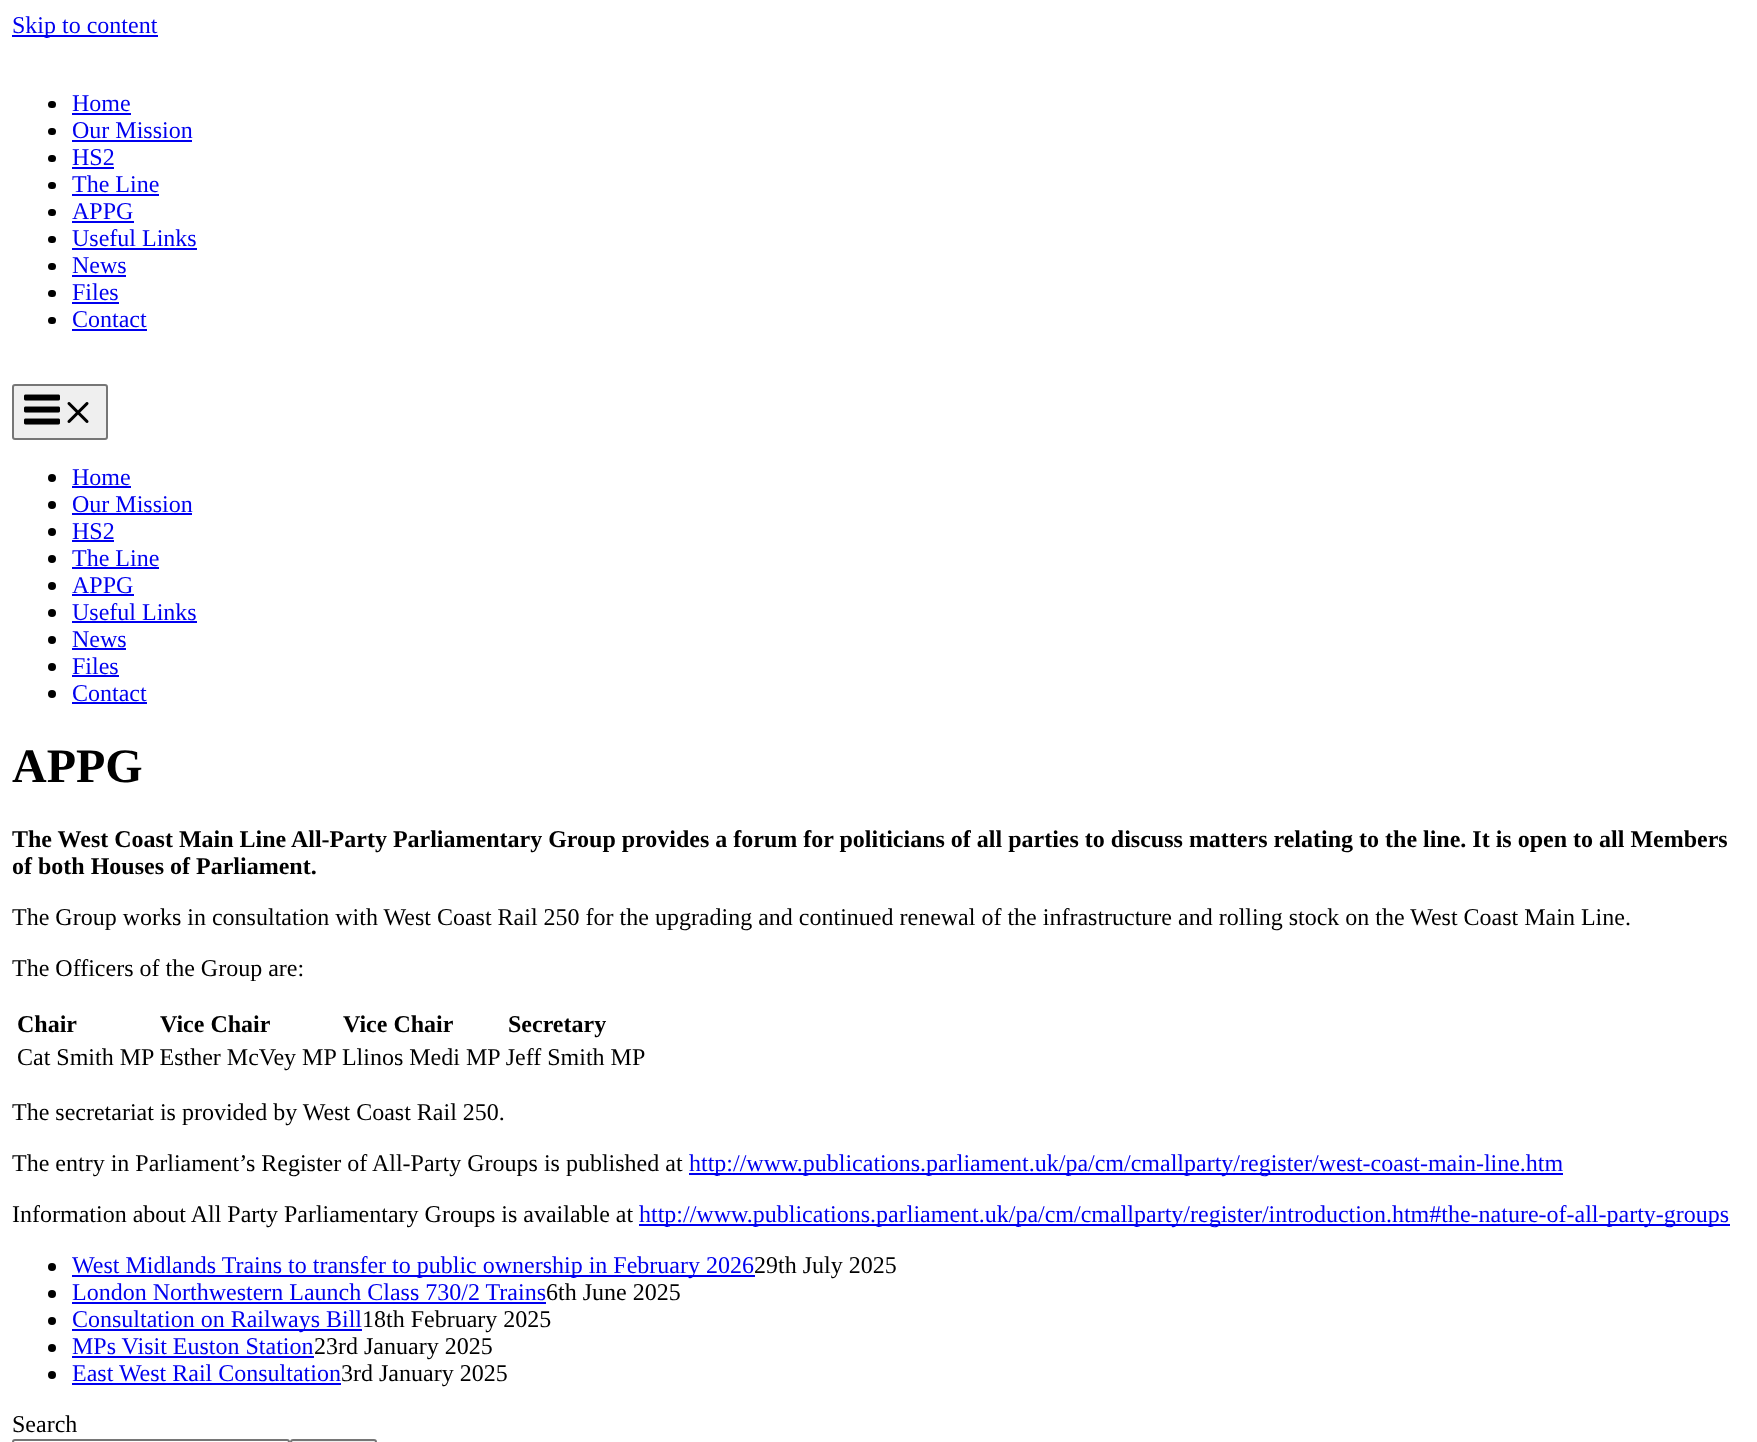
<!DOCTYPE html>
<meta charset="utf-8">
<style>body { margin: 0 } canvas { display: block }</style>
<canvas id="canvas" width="1757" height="1442"></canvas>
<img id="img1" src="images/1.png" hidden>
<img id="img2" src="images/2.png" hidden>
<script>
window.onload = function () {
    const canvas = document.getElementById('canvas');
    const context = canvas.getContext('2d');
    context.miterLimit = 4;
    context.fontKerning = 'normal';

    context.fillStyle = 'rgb(255, 255, 255)';
    context.fillRect(0, 0, 1757, 1442);
    context.fillStyle = 'rgb(0, 0, 238)';
    context.fillRect(12, 35, 146, 2);
    context.fillStyle = 'rgb(0, 0, 0)';
    context.beginPath();
    context.roundRect(48, 101, 8, 7, 3.5);
    context.fill();
    context.fillStyle = 'rgb(0, 0, 238)';
    context.fillRect(72, 113, 59, 2);
    context.fillStyle = 'rgb(0, 0, 0)';
    context.beginPath();
    context.roundRect(48, 128, 8, 7, 3.5);
    context.fill();
    context.fillStyle = 'rgb(0, 0, 238)';
    context.fillRect(72, 140, 120, 2);
    context.fillStyle = 'rgb(0, 0, 0)';
    context.beginPath();
    context.roundRect(48, 155, 8, 7, 3.5);
    context.fill();
    context.fillStyle = 'rgb(0, 0, 238)';
    context.fillRect(72, 167, 42, 2);
    context.fillStyle = 'rgb(0, 0, 0)';
    context.beginPath();
    context.roundRect(48, 182, 8, 7, 3.5);
    context.fill();
    context.fillStyle = 'rgb(0, 0, 238)';
    context.fillRect(72, 194, 87, 2);
    context.fillStyle = 'rgb(0, 0, 0)';
    context.beginPath();
    context.roundRect(48, 209, 8, 7, 3.5);
    context.fill();
    context.fillStyle = 'rgb(0, 0, 238)';
    context.fillRect(72, 221, 62, 2);
    context.fillStyle = 'rgb(0, 0, 0)';
    context.beginPath();
    context.roundRect(48, 236, 8, 7, 3.5);
    context.fill();
    context.fillStyle = 'rgb(0, 0, 238)';
    context.fillRect(72, 248, 125, 2);
    context.fillStyle = 'rgb(0, 0, 0)';
    context.beginPath();
    context.roundRect(48, 263, 8, 7, 3.5);
    context.fill();
    context.fillStyle = 'rgb(0, 0, 238)';
    context.fillRect(72, 275, 54, 2);
    context.fillStyle = 'rgb(0, 0, 0)';
    context.beginPath();
    context.roundRect(48, 290, 8, 7, 3.5);
    context.fill();
    context.fillStyle = 'rgb(0, 0, 238)';
    context.fillRect(72, 302, 47, 2);
    context.fillStyle = 'rgb(0, 0, 0)';
    context.beginPath();
    context.roundRect(48, 317, 8, 7, 3.5);
    context.fill();
    context.fillStyle = 'rgb(0, 0, 238)';
    context.fillRect(72, 329, 75, 2);
    context.fillStyle = 'rgb(239, 239, 239)';
    context.beginPath();
    context.roundRect(13, 385, 94, 54, 2);
    context.fill();
    context.strokeStyle = 'rgb(118, 118, 118)';
    context.lineWidth = 2;
    context.stroke();
    context.drawImage(document.getElementById('img1'), 24, 394, 36, 31);
    context.drawImage(document.getElementById('img2'), 67, 402, 22, 21);
    context.fillStyle = 'rgb(0, 0, 0)';
    context.beginPath();
    context.arc(52, 478, 4, 0, 2 * Math.PI);
    context.fill();
    context.fillStyle = 'rgb(0, 0, 238)';
    context.fillRect(72, 486, 59, 2);
    context.fillStyle = 'rgb(0, 0, 0)';
    context.beginPath();
    context.arc(52, 505, 4, 0, 2 * Math.PI);
    context.fill();
    context.fillStyle = 'rgb(0, 0, 238)';
    context.fillRect(72, 513, 120, 2);
    context.fillStyle = 'rgb(0, 0, 0)';
    context.beginPath();
    context.arc(52, 532, 4, 0, 2 * Math.PI);
    context.fill();
    context.fillStyle = 'rgb(0, 0, 238)';
    context.fillRect(72, 540, 42, 2);
    context.fillStyle = 'rgb(0, 0, 0)';
    context.beginPath();
    context.arc(52, 559, 4, 0, 2 * Math.PI);
    context.fill();
    context.fillStyle = 'rgb(0, 0, 238)';
    context.fillRect(72, 567, 87, 2);
    context.fillStyle = 'rgb(0, 0, 0)';
    context.beginPath();
    context.arc(52, 586, 4, 0, 2 * Math.PI);
    context.fill();
    context.fillStyle = 'rgb(0, 0, 238)';
    context.fillRect(72, 594, 62, 2);
    context.fillStyle = 'rgb(0, 0, 0)';
    context.beginPath();
    context.arc(52, 613, 4, 0, 2 * Math.PI);
    context.fill();
    context.fillStyle = 'rgb(0, 0, 238)';
    context.fillRect(72, 621, 125, 2);
    context.fillStyle = 'rgb(0, 0, 0)';
    context.beginPath();
    context.arc(52, 640, 4, 0, 2 * Math.PI);
    context.fill();
    context.fillStyle = 'rgb(0, 0, 238)';
    context.fillRect(72, 648, 54, 2);
    context.fillStyle = 'rgb(0, 0, 0)';
    context.beginPath();
    context.arc(52, 667, 4, 0, 2 * Math.PI);
    context.fill();
    context.fillStyle = 'rgb(0, 0, 238)';
    context.fillRect(72, 675, 47, 2);
    context.fillStyle = 'rgb(0, 0, 0)';
    context.beginPath();
    context.arc(52, 694, 4, 0, 2 * Math.PI);
    context.fill();
    context.fillStyle = 'rgb(0, 0, 238)';
    context.fillRect(72, 702, 75, 2);
    context.fillRect(689, 1173, 874, 2);
    context.fillRect(639, 1224, 1091, 2);
    context.fillStyle = 'rgb(0, 0, 0)';
    context.beginPath();
    context.arc(52, 1267, 4, 0, 2 * Math.PI);
    context.fill();
    context.fillStyle = 'rgb(0, 0, 238)';
    context.fillRect(72, 1275, 683, 2);
    context.fillStyle = 'rgb(0, 0, 0)';
    context.beginPath();
    context.arc(52, 1294, 4, 0, 2 * Math.PI);
    context.fill();
    context.fillStyle = 'rgb(0, 0, 238)';
    context.fillRect(72, 1302, 474, 2);
    context.fillStyle = 'rgb(0, 0, 0)';
    context.beginPath();
    context.arc(52, 1321, 4, 0, 2 * Math.PI);
    context.fill();
    context.fillStyle = 'rgb(0, 0, 238)';
    context.fillRect(72, 1329, 290, 2);
    context.fillStyle = 'rgb(0, 0, 0)';
    context.beginPath();
    context.arc(52, 1348, 4, 0, 2 * Math.PI);
    context.fill();
    context.fillStyle = 'rgb(0, 0, 238)';
    context.fillRect(72, 1356, 242, 2);
    context.fillStyle = 'rgb(0, 0, 0)';
    context.beginPath();
    context.arc(52, 1375, 4, 0, 2 * Math.PI);
    context.fill();
    context.fillStyle = 'rgb(0, 0, 238)';
    context.fillRect(72, 1383, 269, 2);
    context.beginPath();
    context.roundRect(13, 1440, 276, 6, 2);
    context.stroke();
    context.fillStyle = 'rgb(239, 239, 239)';
    context.beginPath();
    context.roundRect(291, 1440, 85, 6, 2);
    context.fill();
    context.stroke();
    context.font = '24px Liberation Serif';
    context.fillStyle = 'rgb(0, 0, 238)';
    context.fillText('Skip to content', 12, 33);
    context.fillText('Home', 72, 111);
    context.fillText('Our Mission', 72, 138);
    context.fillText('HS2', 72, 165);
    context.fillText('The Line', 72, 192);
    context.fillText('APPG', 72, 219);
    context.fillText('Useful Links', 72, 246);
    context.fillText('News', 72, 273);
    context.fillText('Files', 72, 300);
    context.fillText('Contact', 72, 327);
    context.fillText('Home', 72, 485);
    context.fillText('Our Mission', 72, 512);
    context.fillText('HS2', 72, 539);
    context.fillText('The Line', 72, 566);
    context.fillText('APPG', 72, 593);
    context.fillText('Useful Links', 72, 620);
    context.fillText('News', 72, 647);
    context.fillText('Files', 72, 674);
    context.fillText('Contact', 72, 701);
    context.font = 'bold 48px Liberation Serif';
    context.fillStyle = 'rgb(0, 0, 0)';
    context.fillText('APPG', 12, 782);
    context.font = 'bold 24px Liberation Serif';
    context.fillText('The West Coast Main Line All-Party Parliamentary Group provides a forum for politicians of all parties to discuss matters relating to the line. It is open to all Members', 12, 847);
    context.fillText('of both Houses of Parliament.', 12, 874);
    context.font = '24px Liberation Serif';
    context.fillText('The Group works in consultation with West Coast Rail 250 for the upgrading and continued renewal of the infrastructure and rolling stock on the West Coast Main Line.', 12, 925);
    context.fillText('The Officers of the Group are:', 12, 976);
    context.font = 'bold 24px Liberation Serif';
    context.fillText('Chair', 17, 1032);
    context.fillText('Vice Chair', 160, 1032);
    context.fillText('Vice Chair', 343, 1032);
    context.fillText('Secretary', 508, 1032);
    context.font = '24px Liberation Serif';
    context.fillText('Cat Smith MP Esther McVey MP Llinos Medi MP Jeff Smith MP', 17, 1065);
    context.fillText('The secretariat is provided by West Coast Rail 250.', 12, 1120);
    context.fillText('The entry in Parliament’s Register of All-Party Groups is published at', 12, 1171);
    context.fillStyle = 'rgb(0, 0, 238)';
    context.fillText('http://www.publications.parliament.uk/pa/cm/cmallparty/register/west-coast-main-line.htm', 689, 1171);
    context.fillStyle = 'rgb(0, 0, 0)';
    context.fillText('Information about All Party Parliamentary Groups is available at', 12, 1222);
    context.fillStyle = 'rgb(0, 0, 238)';
    context.fillText('http://www.publications.parliament.uk/pa/cm/cmallparty/register/introduction.htm#the-nature-of-all-party-groups', 639, 1222);
    context.fillText('West Midlands Trains to transfer to public ownership in February 2026', 72, 1273);
    context.fillStyle = 'rgb(0, 0, 0)';
    context.fillText('29th July 2025', 754, 1273);
    context.fillStyle = 'rgb(0, 0, 238)';
    context.fillText('London Northwestern Launch Class 730/2 Trains', 72, 1300);
    context.fillStyle = 'rgb(0, 0, 0)';
    context.fillText('6th June 2025', 546, 1300);
    context.fillStyle = 'rgb(0, 0, 238)';
    context.fillText('Consultation on Railways Bill', 72, 1327);
    context.fillStyle = 'rgb(0, 0, 0)';
    context.fillText('18th February 2025', 362, 1327);
    context.fillStyle = 'rgb(0, 0, 238)';
    context.fillText('MPs Visit Euston Station', 72, 1354);
    context.fillStyle = 'rgb(0, 0, 0)';
    context.fillText('23rd January 2025', 314, 1354);
    context.fillStyle = 'rgb(0, 0, 238)';
    context.fillText('East West Rail Consultation', 72, 1381);
    context.fillStyle = 'rgb(0, 0, 0)';
    context.fillText('3rd January 2025', 341, 1381);
    context.fillText('Search', 12, 1432);
};
</script>
